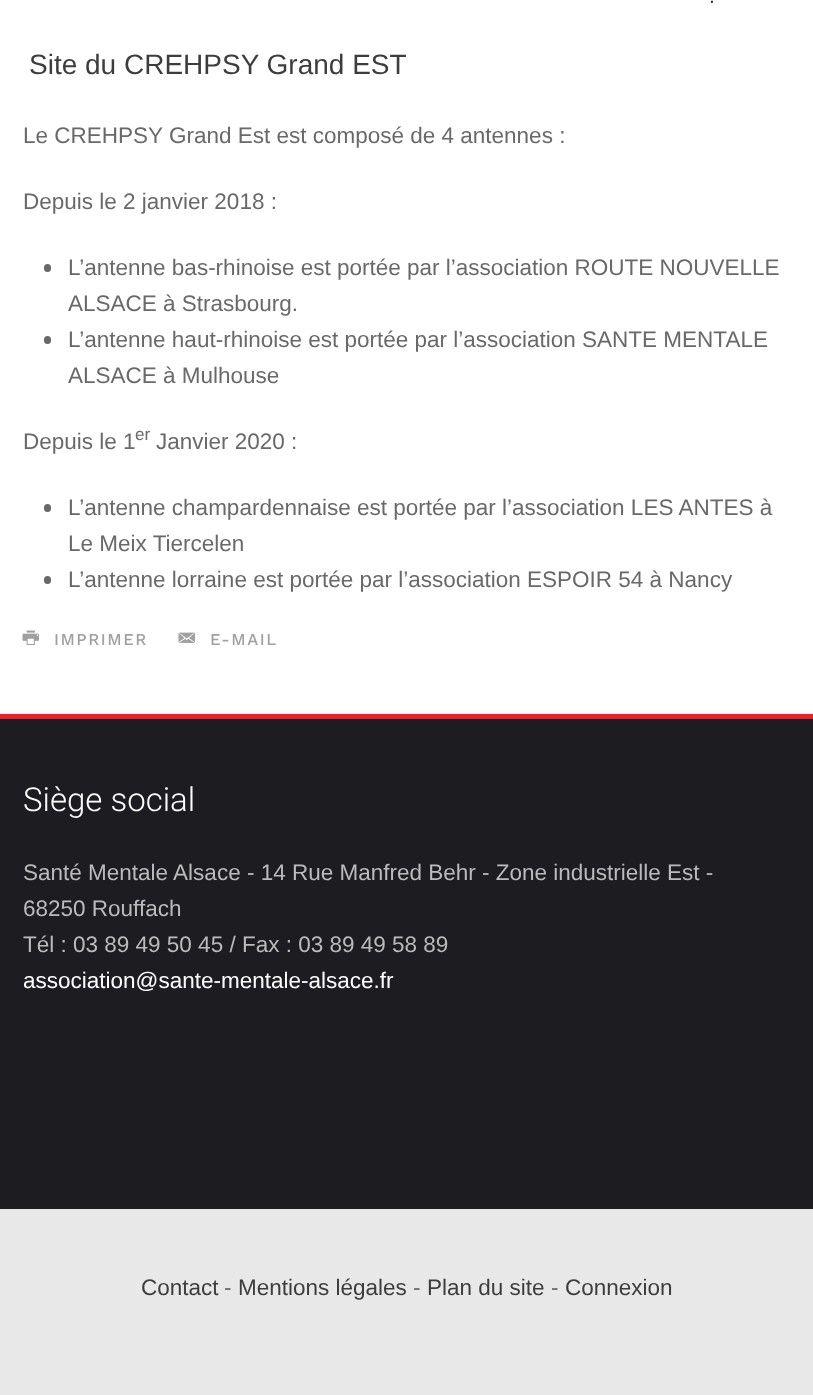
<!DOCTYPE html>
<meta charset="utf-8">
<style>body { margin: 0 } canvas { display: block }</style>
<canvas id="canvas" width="813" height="1395"></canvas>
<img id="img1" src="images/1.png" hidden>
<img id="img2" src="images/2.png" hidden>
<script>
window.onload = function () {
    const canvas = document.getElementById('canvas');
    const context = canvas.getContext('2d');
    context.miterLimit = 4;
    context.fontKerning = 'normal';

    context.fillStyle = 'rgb(255, 255, 255)';
    context.fillRect(0, 0, 813, 1395);
    context.fillStyle = 'rgb(105, 105, 105)';
    context.beginPath();
    context.roundRect(44, 264, 7, 8, 3.5);
    context.fill();
    context.beginPath();
    context.roundRect(44, 336, 7, 8, 3.5);
    context.fill();
    context.beginPath();
    context.roundRect(44, 504, 7, 8, 3.5);
    context.fill();
    context.beginPath();
    context.roundRect(44, 576, 7, 8, 3.5);
    context.fill();
    context.drawImage(document.getElementById('img1'), 22, 630, 17, 15);
    context.drawImage(document.getElementById('img2'), 178, 632, 17, 11);
    context.fillStyle = 'rgb(29, 28, 33)';
    context.fillRect(0, 719, 813, 490);
    context.fillStyle = 'rgb(249, 27, 36)';
    context.fillRect(0, 714, 813, 5);
    context.fillStyle = 'rgb(232, 232, 232)';
    context.fillRect(0, 1209, 813, 186);
    context.font = '21px Liberation Sans';
    context.fillStyle = 'rgb(51, 51, 51)';
    context.fillText('.', 709, 3);
    context.font = '28px Liberation Sans';
    context.fillStyle = 'rgb(61, 61, 61)';
    context.fillText('Site du CREHPSY Grand EST', 29, 74);
    context.font = '22.5px Liberation Sans';
    context.fillStyle = 'rgb(105, 105, 105)';
    context.fillText('Le CREHPSY Grand Est est composé de 4 antennes :', 23, 143);
    context.fillText('Depuis le 2 janvier 2018 :', 23, 209);
    context.fillText('L’antenne bas-rhinoise est portée par l’association ROUTE NOUVELLE', 68, 275);
    context.fillText('ALSACE à Strasbourg.', 68, 311);
    context.fillText('L’antenne haut-rhinoise est portée par l’association SANTE MENTALE', 68, 347);
    context.fillText('ALSACE à Mulhouse', 68, 383);
    context.fillText('Depuis le 1', 23, 449);
    context.font = '17px Liberation Sans';
    context.fillText('er', 135, 440);
    context.font = '22.5px Liberation Sans';
    context.fillText('Janvier 2020 :', 156, 449);
    context.fillText('L’antenne champardennaise est portée par l’association LES ANTES à', 68, 515);
    context.fillText('Le Meix Tiercelen', 68, 551);
    context.fillText('L’antenne lorraine est portée par l’association ESPOIR 54 à Nancy', 68, 587);
    context.letterSpacing = '1.5px';
    context.font = '500 16.5px Work Sans';
    context.fillStyle = 'rgb(160, 160, 160)';
    context.fillText('IMPRIMER', 54, 645);
    context.fillText('E-MAIL', 210, 645);
    context.letterSpacing = '0px';
    context.font = '300 33px Roboto';
    context.fillStyle = 'rgb(255, 255, 255)';
    context.fillText('Siège social', 23, 811);
    context.font = '22.5px Liberation Sans';
    context.fillStyle = 'rgb(187, 187, 188)';
    context.fillText('Santé Mentale Alsace - 14 Rue Manfred Behr - Zone industrielle Est -', 23, 880);
    context.fillText('68250 Rouffach', 23, 916);
    context.fillText('Tél : 03 89 49 50 45 / Fax : 03 89 49 58 89', 23, 952);
    context.fillStyle = 'rgb(255, 255, 255)';
    context.fillText('association@sante-mentale-alsace.fr', 23, 988);
    context.fillStyle = 'rgb(61, 61, 61)';
    context.fillText('Contact', 141, 1295);
    context.fillStyle = 'rgb(105, 105, 105)';
    context.fillText('-', 224, 1295);
    context.fillStyle = 'rgb(61, 61, 61)';
    context.fillText('Mentions légales', 238, 1295);
    context.fillStyle = 'rgb(105, 105, 105)';
    context.fillText('-', 413, 1295);
    context.fillStyle = 'rgb(61, 61, 61)';
    context.fillText('Plan du site', 427, 1295);
    context.fillStyle = 'rgb(105, 105, 105)';
    context.fillText('-', 551, 1295);
    context.fillStyle = 'rgb(61, 61, 61)';
    context.fillText('Connexion', 565, 1295);
};
</script>
